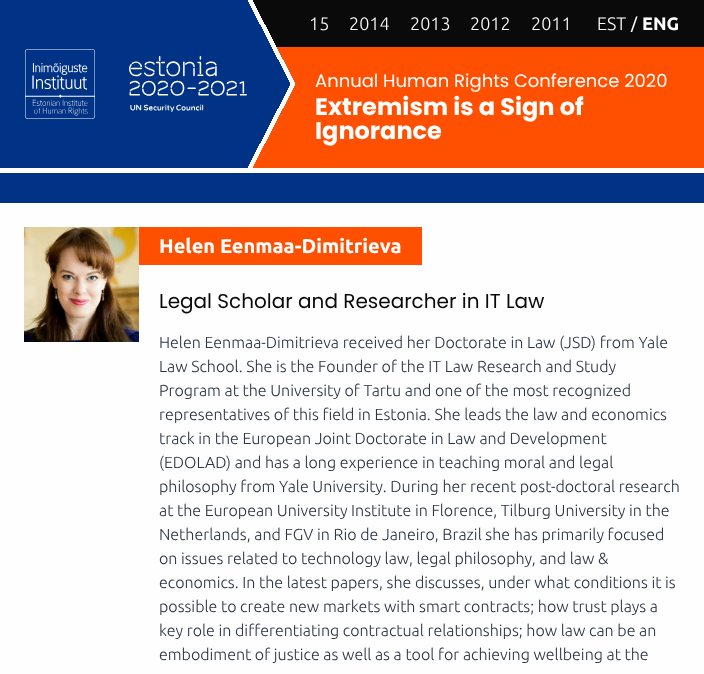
<!DOCTYPE html>
<meta charset="utf-8">
<style>body { margin: 0 } canvas { display: block }</style>
<canvas id="canvas" width="704" height="674"></canvas>
<img id="img1" src="images/1.png" hidden>
<img id="img2" src="images/2.png" hidden>
<img id="img3" src="images/3.png" hidden>
<script>
window.onload = function () {
    const canvas = document.getElementById('canvas');
    const context = canvas.getContext('2d');
    context.miterLimit = 4;
    context.fontKerning = 'normal';
    let gradient;

    context.fillStyle = 'rgb(254, 254, 254)';
    context.fillRect(0, 0, 704, 674);
    context.fillStyle = 'rgb(254, 80, 0)';
    context.fillRect(277, 47, 427, 121);
    context.fillStyle = 'rgb(10, 10, 10)';
    context.fillRect(253, 0, 451, 47);
    context.fillStyle = 'rgb(0, 51, 133)';
    context.fillRect(0, 0, 247, 168);
    gradient = context.createLinearGradient(309, 144, 239, 108);
    gradient.addColorStop(0.5, 'rgb(254, 80, 0)');
    gradient.addColorStop(0.5, 'rgb(254, 254, 254)');
    context.fillStyle = gradient;
    context.fillRect(253, 84, 42, 84);
    gradient = context.createLinearGradient(304, 144, 234, 108);
    gradient.addColorStop(0.5, 'rgba(0, 51, 133, 0)');
    gradient.addColorStop(0.5, 'rgb(0, 51, 133)');
    context.fillStyle = gradient;
    context.fillRect(247, 84, 43, 84);
    gradient = context.createLinearGradient(309, 24, 239, 60);
    gradient.addColorStop(0.5, 'rgba(254, 254, 254, 0)');
    gradient.addColorStop(0.5, 'rgb(254, 254, 254)');
    context.fillStyle = gradient;
    context.fillRect(253, 2, 42, 82);
    gradient = context.createLinearGradient(304, 24, 234, 60);
    gradient.addColorStop(0.5, 'rgba(0, 51, 133, 0)');
    gradient.addColorStop(0.5, 'rgb(0, 51, 133)');
    context.fillStyle = gradient;
    context.fillRect(247, 0, 43, 84);
    context.drawImage(document.getElementById('img1'), 25, 49, 70, 70);
    context.drawImage(document.getElementById('img2'), 129, 56, 118, 56);
    context.fillStyle = 'rgb(0, 51, 133)';
    context.fillRect(0, 173, 704, 30);
    context.drawImage(document.getElementById('img3'), 24, 227, 115, 115);
    context.fillStyle = 'rgb(254, 80, 0)';
    context.fillRect(139, 227, 283, 38);
    context.font = '300 18px Ubuntu';
    context.fillStyle = 'rgb(254, 254, 254)';
    context.fillText('15', 309, 30);
    context.fillText('2014', 349, 30);
    context.fillText('2013', 410, 30);
    context.fillText('2012', 470, 30);
    context.fillText('2011', 531, 30);
    context.fillText('EST', 597, 30);
    context.font = '16px Ubuntu';
    context.fillText('/', 631, 29);
    context.font = 'bold 18px Ubuntu';
    context.fillText('ENG', 642, 30);
    context.font = '18px Poppins';
    context.fillText('Annual Human Rights Conference 2020', 315, 87);
    context.font = 'bold 24px Poppins';
    context.fillText('Extremism is a Sign of', 315, 115);
    context.fillText('Ignorance', 315, 139);
    context.font = 'bold 20px Ubuntu';
    context.fillText('Helen Eenmaa-Dimitrieva', 159, 253);
    context.font = '20px Poppins';
    context.fillStyle = 'rgb(10, 10, 10)';
    context.fillText('Legal Scholar and Researcher in IT Law', 159, 308);
    context.font = '300 16px Ubuntu';
    context.fillStyle = 'rgb(44, 53, 68)';
    context.fillText('Helen Eenmaa-Dimitrieva received her Doctorate in Law (JSD) from Yale', 159, 348);
    context.fillText('Law School. She is the Founder of the IT Law Research and Study', 159, 372);
    context.fillText('Program at the University of Tartu and one of the most recognized', 159, 396);
    context.fillText('representatives of this field in Estonia. She leads the law and economics', 159, 420);
    context.fillText('track in the European Joint Doctorate in Law and Development', 159, 444);
    context.fillText('(EDOLAD) and has a long experience in teaching moral and legal', 159, 468);
    context.fillText('philosophy from Yale University. During her recent post-doctoral research', 159, 492);
    context.fillText('at the European University Institute in Florence, Tilburg University in the', 159, 516);
    context.fillText('Netherlands, and FGV in Rio de Janeiro, Brazil she has primarily focused', 159, 540);
    context.fillText('on issues related to technology law, legal philosophy, and law &', 159, 564);
    context.fillText('economics. In the latest papers, she discusses, under what conditions it is', 159, 588);
    context.fillText('possible to create new markets with smart contracts; how trust plays a', 159, 612);
    context.fillText('key role in differentiating contractual relationships; how law can be an', 159, 636);
    context.fillText('embodiment of justice as well as a tool for achieving wellbeing at the', 159, 660);
};
</script>
